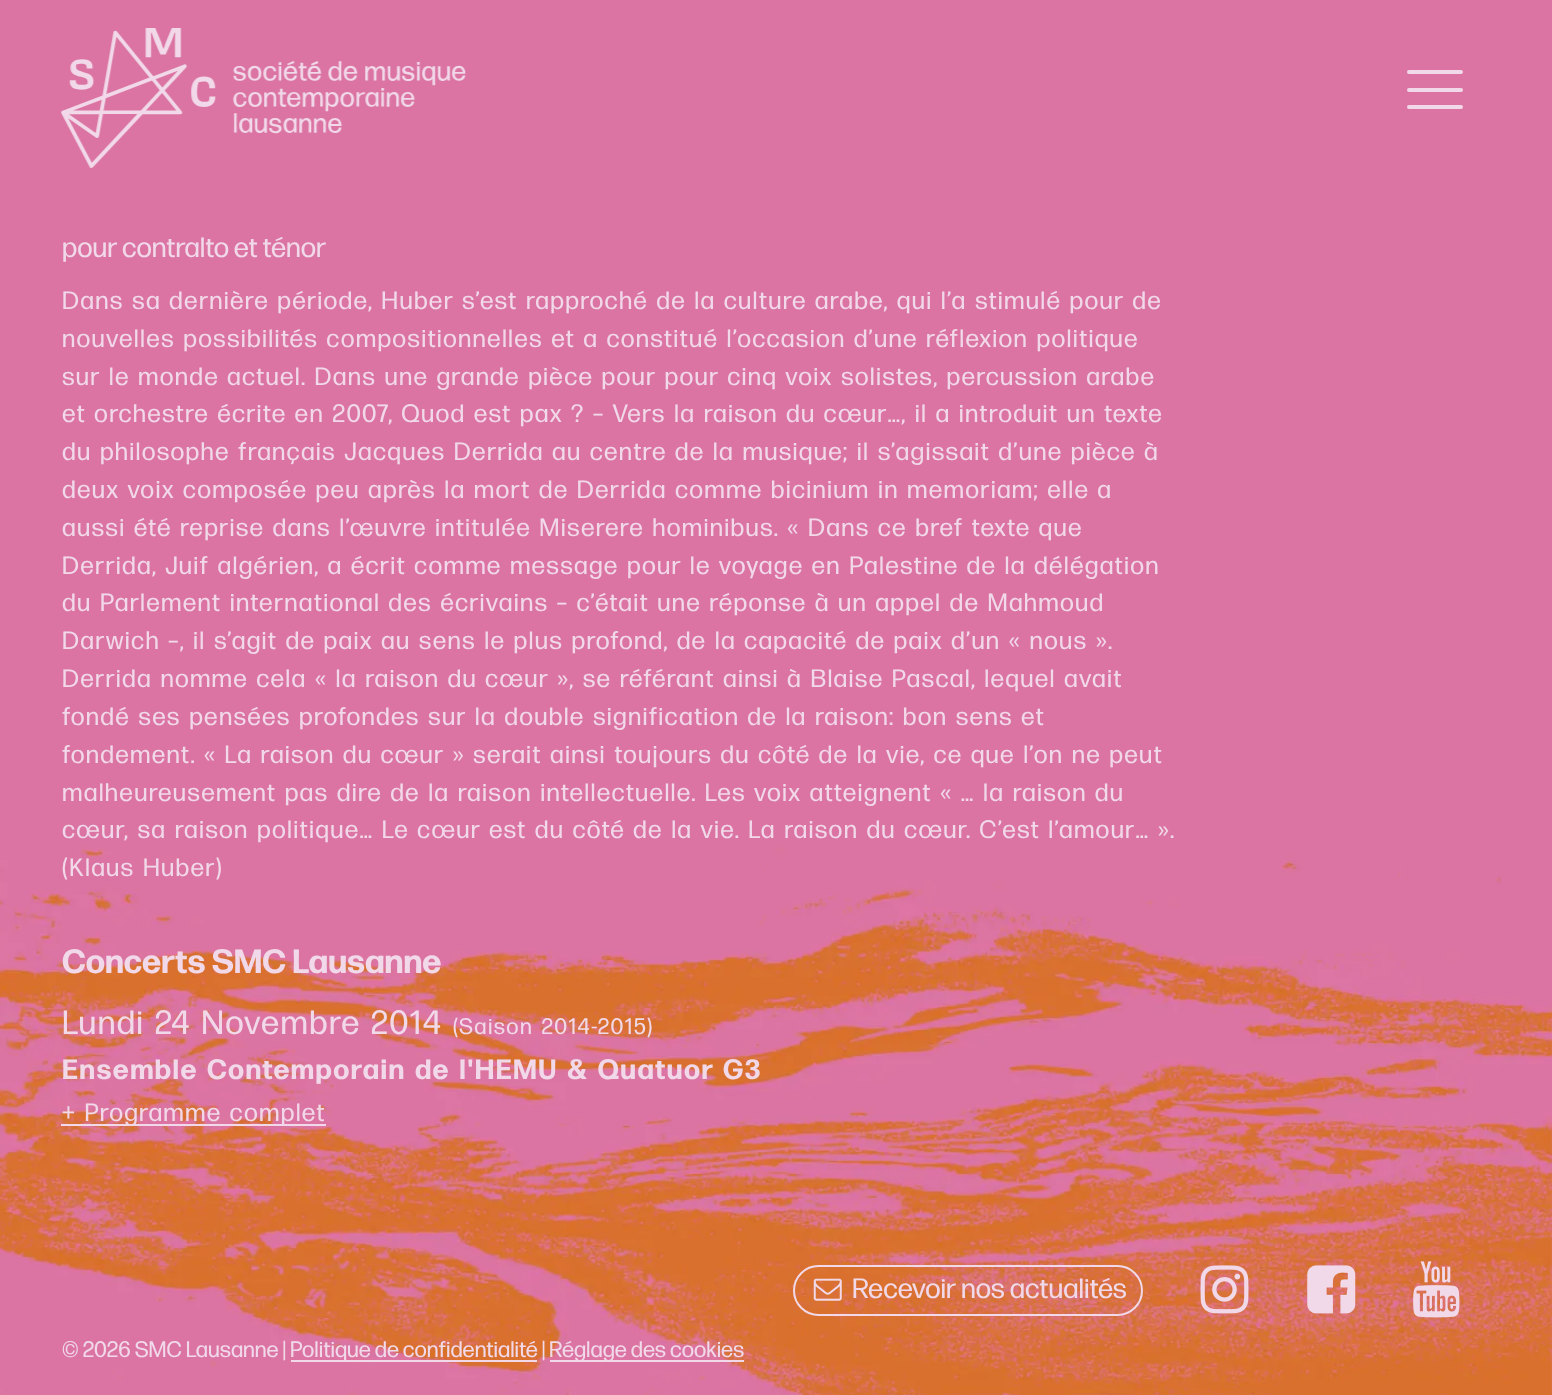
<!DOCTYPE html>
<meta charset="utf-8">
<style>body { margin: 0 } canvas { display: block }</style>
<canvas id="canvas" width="1552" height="1395"></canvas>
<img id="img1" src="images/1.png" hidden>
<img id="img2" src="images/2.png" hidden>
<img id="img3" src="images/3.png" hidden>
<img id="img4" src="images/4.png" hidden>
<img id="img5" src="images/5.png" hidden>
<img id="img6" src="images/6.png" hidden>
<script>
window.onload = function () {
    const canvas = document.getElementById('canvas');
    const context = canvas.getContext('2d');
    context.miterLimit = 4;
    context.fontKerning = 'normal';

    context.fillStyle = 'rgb(219, 116, 163)';
    context.fillRect(0, 0, 1552, 1395);
    context.drawImage(document.getElementById('img1'), 0, 847, 1552, 548);
    context.drawImage(document.getElementById('img2'), 61, 28, 405, 140);
    context.fillStyle = 'rgb(241, 217, 233)';
    context.beginPath();
    context.roundRect(1407, 88, 56, 4, 2);
    context.fill();
    context.beginPath();
    context.roundRect(1407, 70, 56, 4, 2);
    context.fill();
    context.beginPath();
    context.roundRect(1407, 105, 56, 4, 2);
    context.fill();
    context.fillRect(61, 1124, 265, 2);
    context.beginPath();
    context.roundRect(794, 1266, 348, 49, 24.5);
    context.strokeStyle = 'rgb(241, 217, 233)';
    context.lineWidth = 2;
    context.stroke();
    context.drawImage(document.getElementById('img3'), 813, 1278, 29, 23);
    context.drawImage(document.getElementById('img4'), 1200, 1265, 49, 49);
    context.drawImage(document.getElementById('img5'), 1307, 1265, 49, 49);
    context.drawImage(document.getElementById('img6'), 1413, 1261, 47, 57);
    context.fillRect(291, 1360, 246, 2);
    context.fillRect(550, 1360, 194, 2);
    context.font = '28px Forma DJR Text';
    context.fillText('pour contralto et ténor', 62, 257);
    context.letterSpacing = '1.25px';
    context.wordSpacing = '2.5px';
    context.font = '25.2px Forma DJR Text';
    context.fillText('Dans sa dernière période, Huber s’est rapproché de la culture arabe, qui l’a stimulé pour de', 62, 309);
    context.fillText('nouvelles possibilités compositionnelles et a constitué l’occasion d’une réflexion politique', 62, 347);
    context.fillText('sur le monde actuel. Dans une grande pièce pour pour cinq voix solistes, percussion arabe', 62, 385);
    context.fillText('et orchestre écrite en 2007, Quod est pax ? – Vers la raison du cœur…, il a introduit un texte', 62, 422);
    context.fillText('du philosophe français Jacques Derrida au centre de la musique; il s’agissait d’une pièce à', 62, 460);
    context.fillText('deux voix composée peu après la mort de Derrida comme bicinium in memoriam; elle a', 62, 498);
    context.fillText('aussi été reprise dans l’œuvre intitulée Miserere hominibus. « Dans ce bref texte que', 62, 536);
    context.fillText('Derrida, Juif algérien, a écrit comme message pour le voyage en Palestine de la délégation', 62, 574);
    context.fillText('du Parlement international des écrivains – c’était une réponse à un appel de Mahmoud', 62, 611);
    context.fillText('Darwich –, il s’agit de paix au sens le plus profond, de la capacité de paix d’un « nous ».', 62, 649);
    context.fillText('Derrida nomme cela « la raison du cœur », se référant ainsi à Blaise Pascal, lequel avait', 62, 687);
    context.fillText('fondé ses pensées profondes sur la double signification de la raison: bon sens et', 62, 725);
    context.fillText('fondement. « La raison du cœur » serait ainsi toujours du côté de la vie, ce que l’on ne peut', 62, 763);
    context.fillText('malheureusement pas dire de la raison intellectuelle. Les voix atteignent « … la raison du', 62, 801);
    context.fillText('cœur, sa raison politique… Le cœur est du côté de la vie. La raison du cœur. C’est l’amour… ».', 62, 838);
    context.fillText('(Klaus Huber)', 62, 876);
    context.letterSpacing = '0px';
    context.wordSpacing = '0px';
    context.font = 'bold 33.6px Forma DJR Text';
    context.fillText('Concerts SMC Lausanne', 62, 973);
    context.letterSpacing = '1.4px';
    context.wordSpacing = '2.75px';
    context.font = '33.6px Forma DJR Text';
    context.fillText('Lundi 24 Novembre 2014', 62, 1034);
    context.font = '22.4px Forma DJR Text';
    context.fillText('(Saison 2014-2015)', 453, 1034);
    context.font = 'bold 28px Forma DJR Text';
    context.fillText('Ensemble Contemporain de l\'HEMU & Quatuor G3', 62, 1079);
    context.letterSpacing = '1.25px';
    context.wordSpacing = '2.5px';
    context.font = '25.2px Forma DJR Text';
    context.fillText('+ Programme complet', 62, 1121);
    context.letterSpacing = '0px';
    context.wordSpacing = '0px';
    context.font = '28px Forma DJR Text';
    context.fillText('Recevoir nos actualités', 852, 1298);
    context.font = '22.4px Forma DJR Text';
    context.fillText('© 2026 SMC Lausanne |', 62, 1357);
    context.fillText('Politique de confidentialité', 290, 1357);
    context.fillText('|', 542, 1357);
    context.fillText('Réglage des cookies', 549, 1357);
};
</script>
